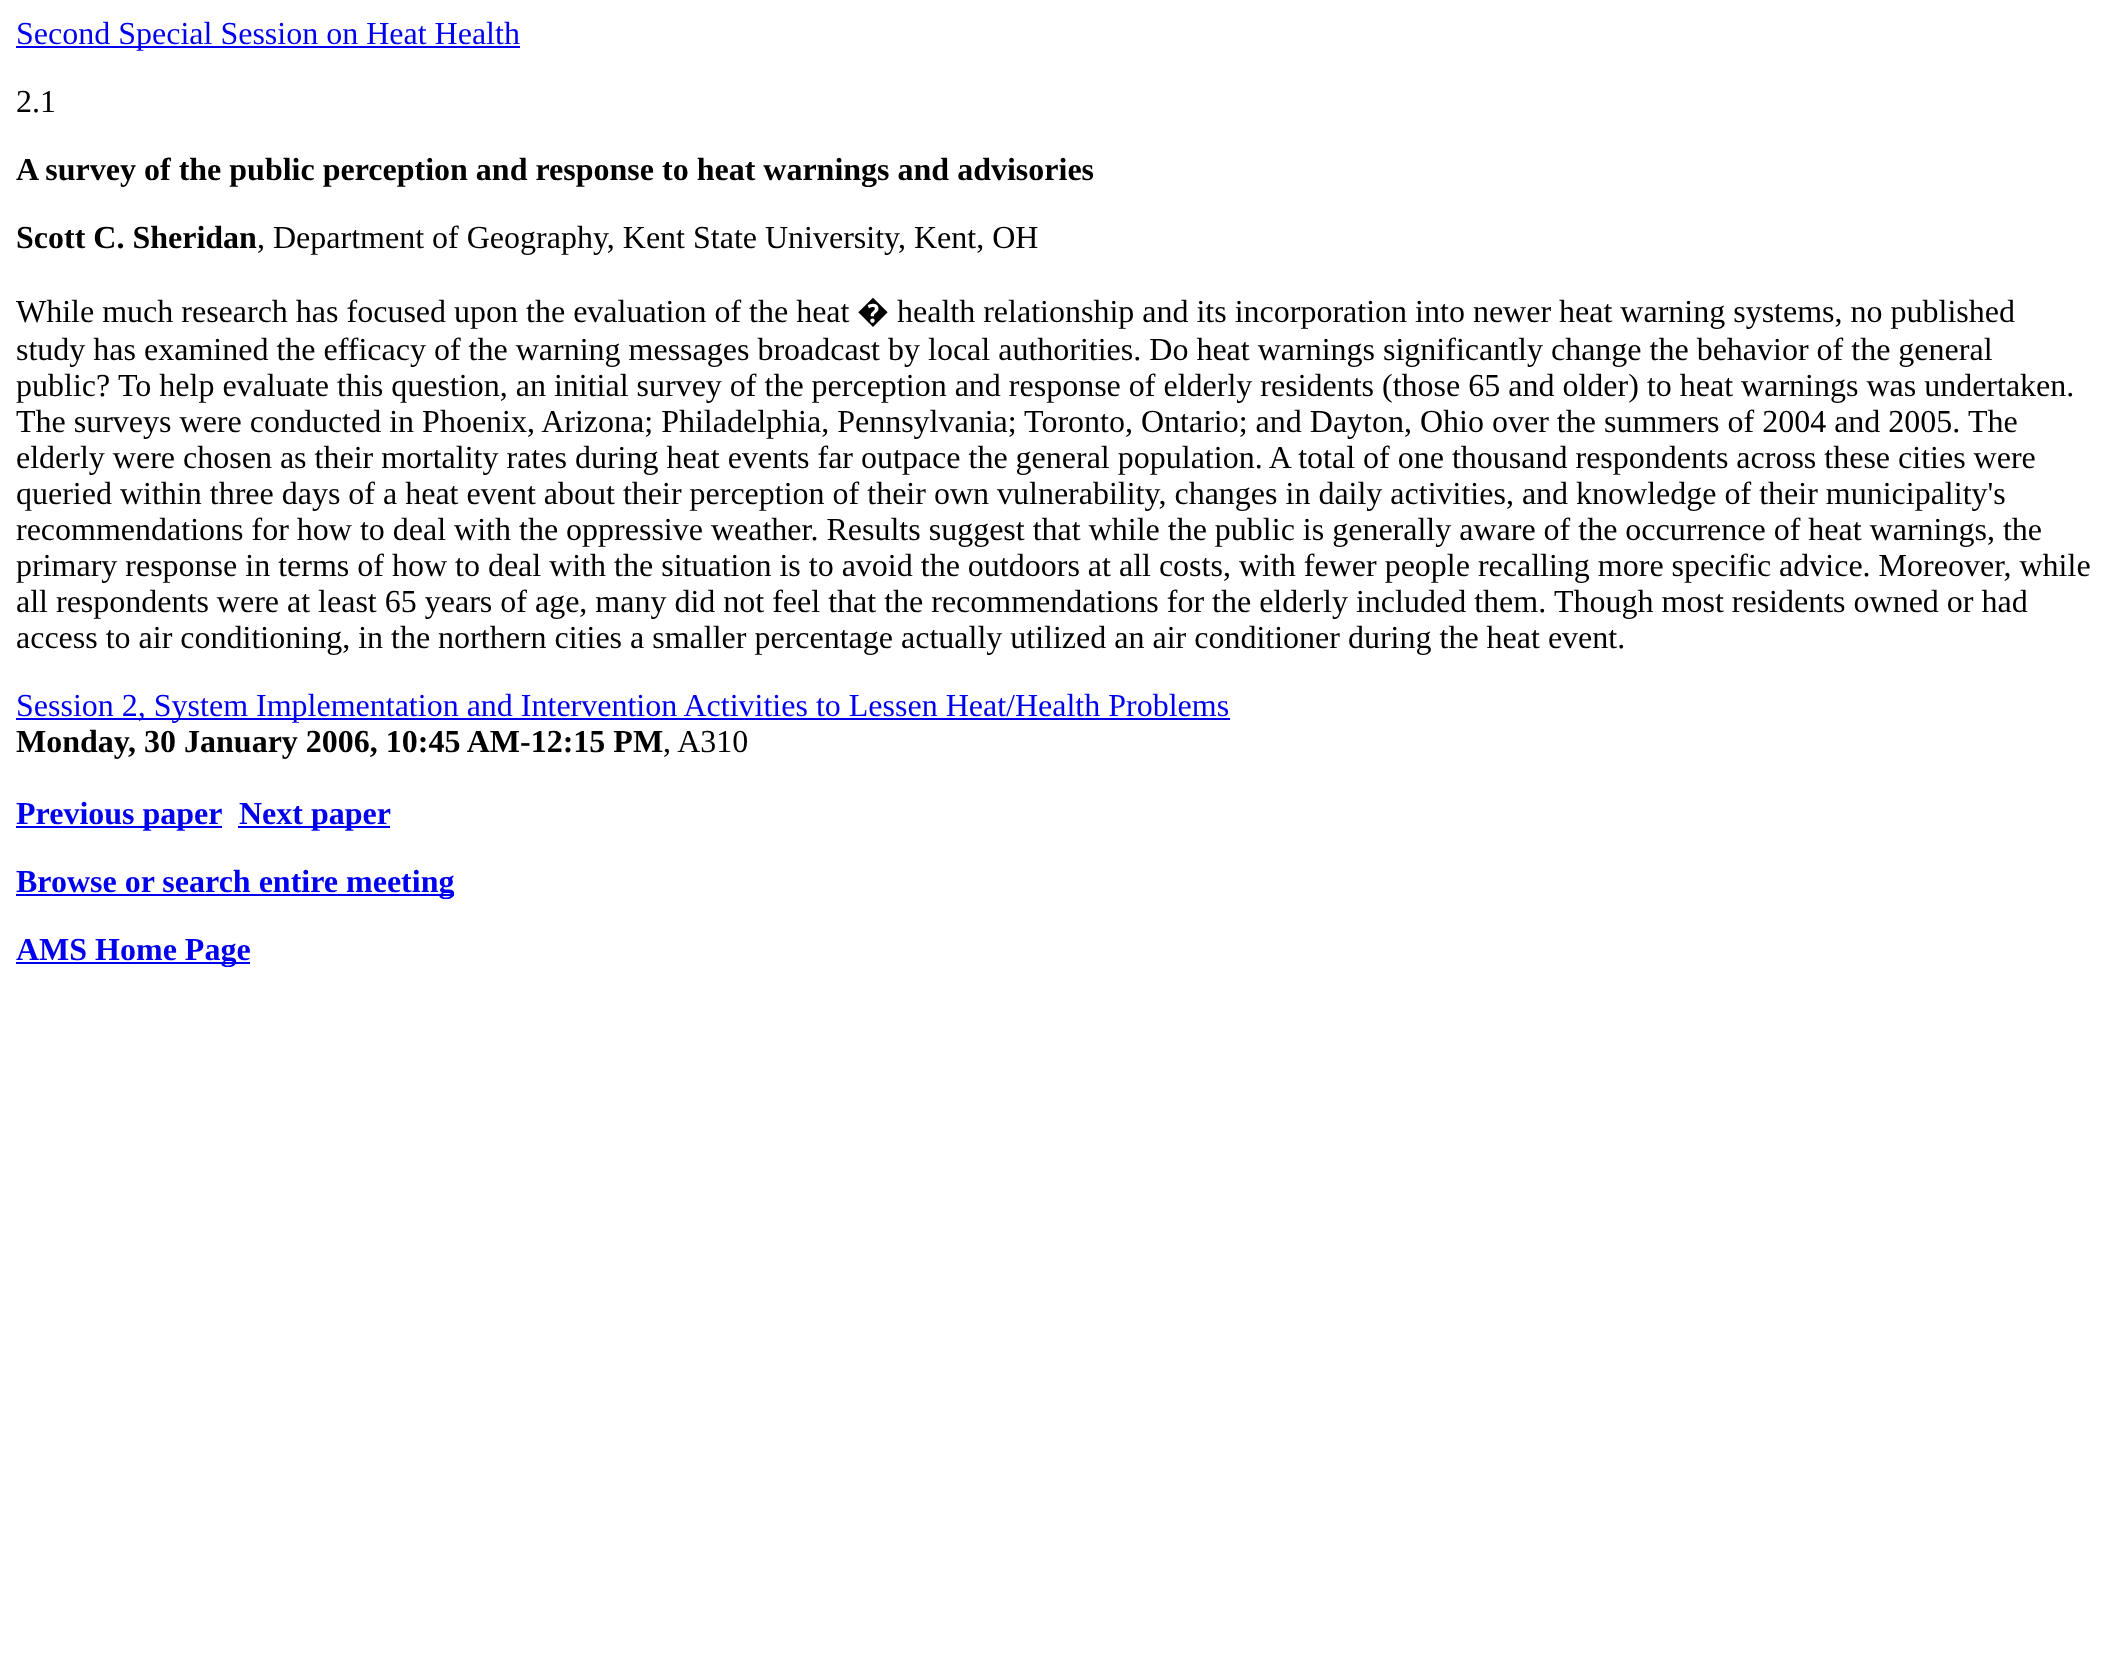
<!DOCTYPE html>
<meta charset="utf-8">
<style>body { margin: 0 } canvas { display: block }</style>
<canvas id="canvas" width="2107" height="1658"></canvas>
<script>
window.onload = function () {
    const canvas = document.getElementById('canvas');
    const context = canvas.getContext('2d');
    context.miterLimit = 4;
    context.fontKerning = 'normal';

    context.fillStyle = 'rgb(255, 255, 255)';
    context.fillRect(0, 0, 2107, 1658);
    context.fillStyle = 'rgb(0, 0, 238)';
    context.fillRect(16, 46, 504, 2);
    context.fillRect(16, 718, 1214, 2);
    context.fillRect(16, 826, 206, 2);
    context.fillRect(238, 826, 152, 2);
    context.fillRect(16, 894, 438, 2);
    context.fillRect(16, 962, 234, 2);
    context.font = '32px Liberation Serif';
    context.fillText('Second Special Session on Heat Health', 16, 44);
    context.fillStyle = 'rgb(0, 0, 0)';
    context.fillText('2.1', 16, 112);
    context.font = 'bold 32px Liberation Serif';
    context.fillText('A survey of the public perception and response to heat warnings and advisories', 16, 180);
    context.fillText('Scott C. Sheridan', 16, 248);
    context.font = '32px Liberation Serif';
    context.fillText(', Department of Geography, Kent State University, Kent, OH', 257, 248);
    context.fillText('While much research has focused upon the evaluation of the heat', 16, 322);
    context.font = '32px Noto Sans';
    context.fillText('�', 857, 322);
    context.font = '32px Liberation Serif';
    context.fillText('health relationship and its incorporation into newer heat warning systems, no published', 897, 322);
    context.fillText('study has examined the efficacy of the warning messages broadcast by local authorities. Do heat warnings significantly change the behavior of the general', 16, 360);
    context.fillText('public?', 16, 396);
    context.fillText('To help evaluate this question, an initial survey of the perception and response of elderly residents (those 65 and older) to heat warnings was undertaken.', 118, 396);
    context.fillText('The surveys were conducted in Phoenix, Arizona; Philadelphia, Pennsylvania; Toronto, Ontario; and Dayton, Ohio over the summers of 2004 and 2005.', 16, 432);
    context.fillText('The', 1968, 432);
    context.fillText('elderly were chosen as their mortality rates during heat events far outpace the general population. A total of one thousand respondents across these cities were', 16, 468);
    context.fillText('queried within three days of a heat event about their perception of their own vulnerability, changes in daily activities, and knowledge of their municipality\'s', 16, 504);
    context.fillText('recommendations for how to deal with the oppressive weather. Results suggest that while the public is generally aware of the occurrence of heat warnings, the', 16, 540);
    context.fillText('primary response in terms of how to deal with the situation is to avoid the outdoors at all costs, with fewer people recalling more specific advice. Moreover, while', 16, 576);
    context.fillText('all respondents were at least 65 years of age, many did not feel that the recommendations for the elderly included them.', 16, 612);
    context.fillText('Though most residents owned or had', 1554, 612);
    context.fillText('access to air conditioning, in the northern cities a smaller percentage actually utilized an air conditioner during the heat event.', 16, 648);
    context.fillStyle = 'rgb(0, 0, 238)';
    context.fillText('Session 2, System Implementation and Intervention Activities to Lessen Heat/Health Problems', 16, 716);
    context.font = 'bold 32px Liberation Serif';
    context.fillStyle = 'rgb(0, 0, 0)';
    context.fillText('Monday, 30 January 2006, 10:45 AM-12:15 PM', 16, 752);
    context.font = '32px Liberation Serif';
    context.fillText(', A310', 663, 752);
    context.font = 'bold 32px Liberation Serif';
    context.fillStyle = 'rgb(0, 0, 238)';
    context.fillText('Previous paper', 16, 824);
    context.fillText('Next paper', 239, 824);
    context.fillText('Browse or search entire meeting', 16, 892);
    context.fillText('AMS Home Page', 16, 960);
};
</script>
